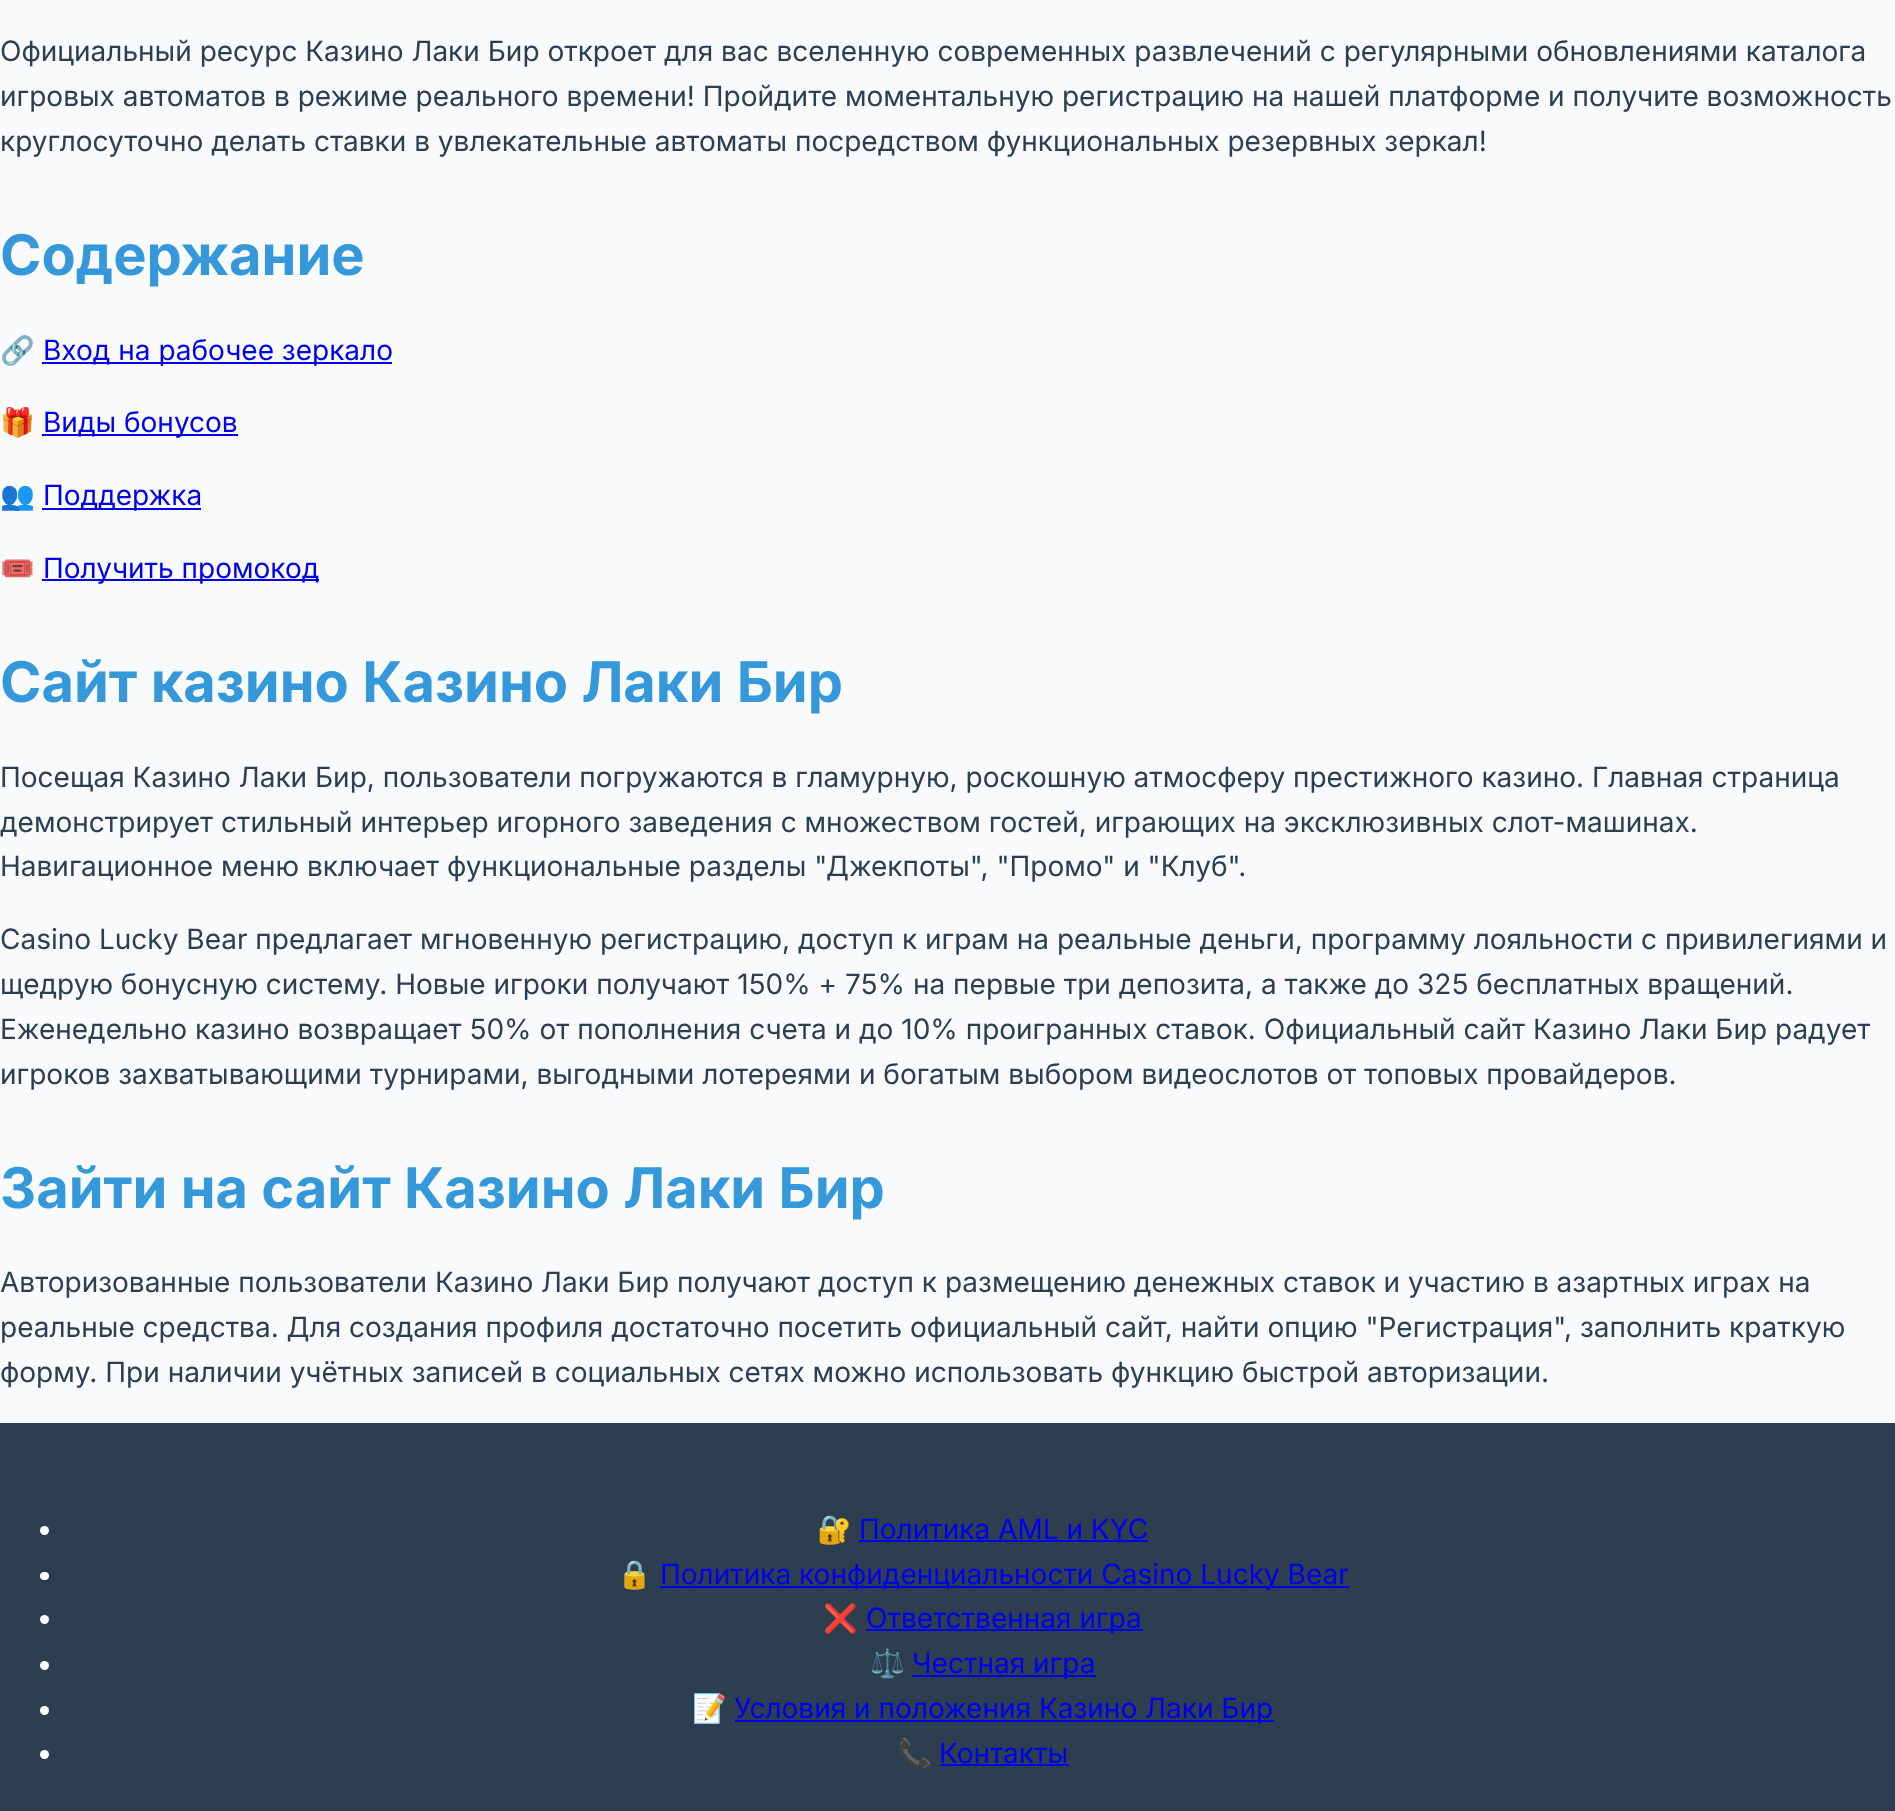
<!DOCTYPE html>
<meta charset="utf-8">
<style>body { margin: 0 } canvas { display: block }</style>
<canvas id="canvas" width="1895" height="1811"></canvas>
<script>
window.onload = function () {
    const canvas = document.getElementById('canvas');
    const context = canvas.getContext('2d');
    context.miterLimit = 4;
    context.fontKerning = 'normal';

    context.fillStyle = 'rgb(248, 250, 252)';
    context.fillRect(0, 0, 1895, 1811);
    context.fillStyle = 'rgb(0, 0, 238)';
    context.fillRect(42, 362, 350, 2);
    context.fillRect(42, 434, 196, 2);
    context.fillRect(42, 508, 159, 2);
    context.fillRect(42, 579, 277, 2);
    context.fillStyle = 'rgb(44, 62, 80)';
    context.fillRect(0, 1423, 1895, 388);
    context.fillStyle = 'rgb(255, 255, 255)';
    context.beginPath();
    context.arc(44.5, 1530.5, 4.5, 0, 2 * Math.PI);
    context.fill();
    context.fillStyle = 'rgb(0, 0, 238)';
    context.fillRect(859, 1540, 289, 2);
    context.fillStyle = 'rgb(255, 255, 255)';
    context.beginPath();
    context.roundRect(40, 1572, 9, 8, 4);
    context.fill();
    context.fillStyle = 'rgb(0, 0, 238)';
    context.fillRect(660, 1586, 689, 2);
    context.fillStyle = 'rgb(255, 255, 255)';
    context.beginPath();
    context.arc(44.5, 1619.5, 4.5, 0, 2 * Math.PI);
    context.fill();
    context.fillStyle = 'rgb(0, 0, 238)';
    context.fillRect(866, 1629, 277, 2);
    context.fillStyle = 'rgb(255, 255, 255)';
    context.beginPath();
    context.arc(44.5, 1665.5, 4.5, 0, 2 * Math.PI);
    context.fill();
    context.fillStyle = 'rgb(0, 0, 238)';
    context.fillRect(912, 1675, 184, 2);
    context.fillStyle = 'rgb(255, 255, 255)';
    context.beginPath();
    context.arc(44.5, 1710.5, 4.5, 0, 2 * Math.PI);
    context.fill();
    context.fillStyle = 'rgb(0, 0, 238)';
    context.fillRect(735, 1720, 539, 2);
    context.fillStyle = 'rgb(255, 255, 255)';
    context.beginPath();
    context.arc(44.5, 1754.5, 4.5, 0, 2 * Math.PI);
    context.fill();
    context.fillStyle = 'rgb(0, 0, 238)';
    context.fillRect(940, 1764, 129, 2);
    context.font = '28px Inter';
    context.fillStyle = 'rgb(44, 62, 80)';
    context.fillText('Официальный ресурс Казино Лаки Бир откроет для вас вселенную современных развлечений с регулярными обновлениями каталога', 0, 61);
    context.fillText('игровых автоматов в режиме реального времени! Пройдите моментальную регистрацию на нашей платформе и получите возможность', 0, 106);
    context.fillText('круглосуточно делать ставки в увлекательные автоматы посредством функциональных резервных зеркал!', 0, 151);
    context.font = 'bold 56px Inter';
    context.fillStyle = 'rgb(52, 152, 219)';
    context.fillText('Содержание', 0, 275);
    context.font = '28px Noto Color Emoji';
    context.fillStyle = 'rgb(44, 62, 80)';
    context.fillText('🔗', 0, 360);
    context.font = '28px Inter';
    context.fillStyle = 'rgb(0, 0, 238)';
    context.fillText('Вход на рабочее зеркало', 43, 360);
    context.font = '28px Noto Color Emoji';
    context.fillStyle = 'rgb(44, 62, 80)';
    context.fillText('🎁', 0, 432);
    context.font = '28px Inter';
    context.fillStyle = 'rgb(0, 0, 238)';
    context.fillText('Виды бонусов', 43, 432);
    context.font = '28px Noto Color Emoji';
    context.fillStyle = 'rgb(44, 62, 80)';
    context.fillText('👥', 0, 505);
    context.font = '28px Inter';
    context.fillStyle = 'rgb(0, 0, 238)';
    context.fillText('Поддержка', 43, 505);
    context.font = '28px Noto Color Emoji';
    context.fillStyle = 'rgb(44, 62, 80)';
    context.fillText('🎟️', 0, 578);
    context.font = '28px Inter';
    context.fillStyle = 'rgb(0, 0, 238)';
    context.fillText('Получить промокод', 43, 578);
    context.font = 'bold 56px Inter';
    context.fillStyle = 'rgb(52, 152, 219)';
    context.fillText('Сайт казино Казино Лаки Бир', 0, 702);
    context.font = '28px Inter';
    context.fillStyle = 'rgb(44, 62, 80)';
    context.fillText('Посещая Казино Лаки Бир, пользователи погружаются в гламурную, роскошную атмосферу престижного казино. Главная страница', 0, 787);
    context.fillText('демонстрирует стильный интерьер игорного заведения с множеством гостей, играющих на эксклюзивных слот-машинах.', 0, 832);
    context.fillText('Навигационное меню включает функциональные разделы "Джекпоты", "Промо" и "Клуб".', 0, 876);
    context.fillText('Casino Lucky Bear предлагает мгновенную регистрацию, доступ к играм на реальные деньги, программу лояльности с привилегиями и', 0, 949);
    context.fillText('щедрую бонусную систему. Новые игроки получают 150% + 75% на первые три депозита, а также до 325 бесплатных вращений.', 0, 994);
    context.fillText('Еженедельно казино возвращает 50% от пополнения счета и до 10% проигранных ставок. Официальный сайт Казино Лаки Бир радует', 0, 1039);
    context.fillText('игроков захватывающими турнирами, выгодными лотереями и богатым выбором видеослотов от топовых провайдеров.', 0, 1084);
    context.font = 'bold 56px Inter';
    context.fillStyle = 'rgb(52, 152, 219)';
    context.fillText('Зайти на сайт Казино Лаки Бир', 0, 1208);
    context.font = '28px Inter';
    context.fillStyle = 'rgb(44, 62, 80)';
    context.fillText('Авторизованные пользователи Казино Лаки Бир получают доступ к размещению денежных ставок и участию в азартных играх на', 0, 1292);
    context.fillText('реальные средства. Для создания профиля достаточно посетить официальный сайт, найти опцию "Регистрация", заполнить краткую', 0, 1337);
    context.fillText('форму. При наличии учётных записей в социальных сетях можно использовать функцию быстрой авторизации.', 0, 1382);
    context.font = '28px Noto Color Emoji';
    context.fillStyle = 'rgb(255, 255, 255)';
    context.fillText('🔐', 817, 1539);
    context.font = '28px Inter';
    context.fillStyle = 'rgb(0, 0, 238)';
    context.fillText('Политика AML и KYC', 859, 1539);
    context.font = '28px Noto Color Emoji';
    context.fillStyle = 'rgb(255, 255, 255)';
    context.fillText('🔒', 617, 1584);
    context.font = '28px Inter';
    context.fillStyle = 'rgb(0, 0, 238)';
    context.fillText('Политика конфиденциальности Casino Lucky Bear', 660, 1584);
    context.font = '28px Noto Color Emoji';
    context.fillStyle = 'rgb(255, 255, 255)';
    context.fillText('❌', 823, 1628);
    context.font = '28px Inter';
    context.fillStyle = 'rgb(0, 0, 238)';
    context.fillText('Ответственная игра', 866, 1628);
    context.font = '28px Noto Color Emoji';
    context.fillStyle = 'rgb(255, 255, 255)';
    context.fillText('⚖️', 870, 1673);
    context.font = '28px Inter';
    context.fillStyle = 'rgb(0, 0, 238)';
    context.fillText('Честная игра', 912, 1673);
    context.font = '28px Noto Color Emoji';
    context.fillStyle = 'rgb(255, 255, 255)';
    context.fillText('📝', 692, 1718);
    context.font = '28px Inter';
    context.fillStyle = 'rgb(0, 0, 238)';
    context.fillText('Условия и положения Казино Лаки Бир', 734, 1718);
    context.font = '28px Noto Color Emoji';
    context.fillStyle = 'rgb(255, 255, 255)';
    context.fillText('📞', 897, 1763);
    context.font = '28px Inter';
    context.fillStyle = 'rgb(0, 0, 238)';
    context.fillText('Контакты', 939, 1763);
};
</script>
